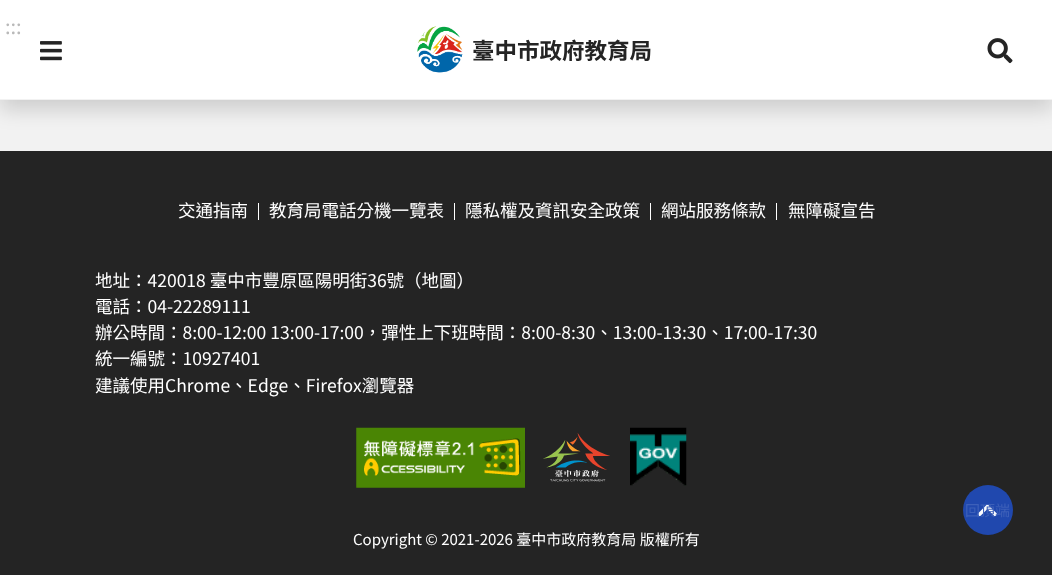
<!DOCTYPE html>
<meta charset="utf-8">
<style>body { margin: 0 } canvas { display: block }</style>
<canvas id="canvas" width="1052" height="575"></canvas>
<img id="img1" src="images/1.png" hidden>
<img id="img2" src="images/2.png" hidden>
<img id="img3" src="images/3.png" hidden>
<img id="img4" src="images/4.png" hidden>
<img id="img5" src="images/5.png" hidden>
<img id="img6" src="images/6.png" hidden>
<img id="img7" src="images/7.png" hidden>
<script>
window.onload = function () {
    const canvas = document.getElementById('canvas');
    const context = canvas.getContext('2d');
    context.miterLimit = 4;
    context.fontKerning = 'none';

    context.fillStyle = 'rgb(36, 36, 36)';
    context.fillRect(0, 0, 1052, 575);
    context.fillStyle = 'rgb(242, 242, 242)';
    context.fillRect(0, 100, 1052, 51);
    context.fillStyle = 'rgba(0, 0, 0, 0.15)';
    context.filter = 'blur(10px)';
    context.beginPath();
    context.rect(0, 10, 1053, 100);
    context.fill();
    context.filter = 'none';
    context.fillStyle = 'rgb(255, 255, 255)';
    context.fillRect(0, 0, 1052, 99);
    context.fillStyle = 'rgb(242, 242, 242)';
    context.fillRect(0, 99, 1052, 1);
    context.drawImage(document.getElementById('img1'), 40, 41, 22, 20);
    context.drawImage(document.getElementById('img2'), 417, 26, 46, 47);
    context.drawImage(document.getElementById('img3'), 987, 38, 26, 26);
    context.fillStyle = 'rgb(255, 255, 255)';
    context.fillRect(258, 203, 1, 17);
    context.fillRect(454, 203, 1, 17);
    context.fillRect(650, 203, 1, 17);
    context.fillRect(776, 203, 1, 17);
    context.drawImage(document.getElementById('img4'), 356, 427, 169, 61);
    context.drawImage(document.getElementById('img5'), 543, 433, 67, 49);
    context.drawImage(document.getElementById('img6'), 630, 427, 57, 59);
    context.fillStyle = 'rgb(32, 72, 174)';
    context.beginPath();
    context.arc(988, 510, 25, 0, 2 * Math.PI);
    context.fill();
    context.drawImage(document.getElementById('img7'), 977, 504, 20, 13);
    context.font = '20px Noto Sans TC';
    context.fillStyle = 'rgb(185, 185, 185)';
    context.fillText(':::', 5, 34);
    context.font = 'bold 22.5px Noto Sans TC';
    context.fillStyle = 'rgb(36, 36, 36)';
    context.fillText('臺中市政府教育局', 472, 59);
    context.font = '17.5px Noto Sans TC';
    context.fillStyle = 'rgb(255, 255, 255)';
    context.fillText('交通指南', 178, 217);
    context.fillText('教育局電話分機一覽表', 269, 217);
    context.fillText('隱私權及資訊安全政策', 465, 217);
    context.fillText('網站服務條款', 661, 217);
    context.fillText('無障礙宣告', 788, 217);
    context.fillText('地址：420018 臺中市豐原區陽明街36號（地圖）', 95, 287);
    context.fillText('電話：04-22289111', 95, 313);
    context.fillText('辦公時間：8:00-12:00 13:00-17:00，彈性上下班時間：8:00-8:30、13:00-13:30、17:00-17:30', 95, 339);
    context.fillText('統一編號：10927401', 95, 365);
    context.fillText('建議使用Chrome、Edge、Firefox瀏覽器', 95, 392);
    context.font = '15px Noto Sans TC';
    context.fillStyle = 'rgb(61, 96, 185)';
    context.fillText('回頂端', 965, 516);
    context.fillStyle = 'rgb(255, 255, 255)';
    context.fillText('Copyright © 2021-2026 臺中市政府教育局 版權所有', 353, 545);
};
</script>
